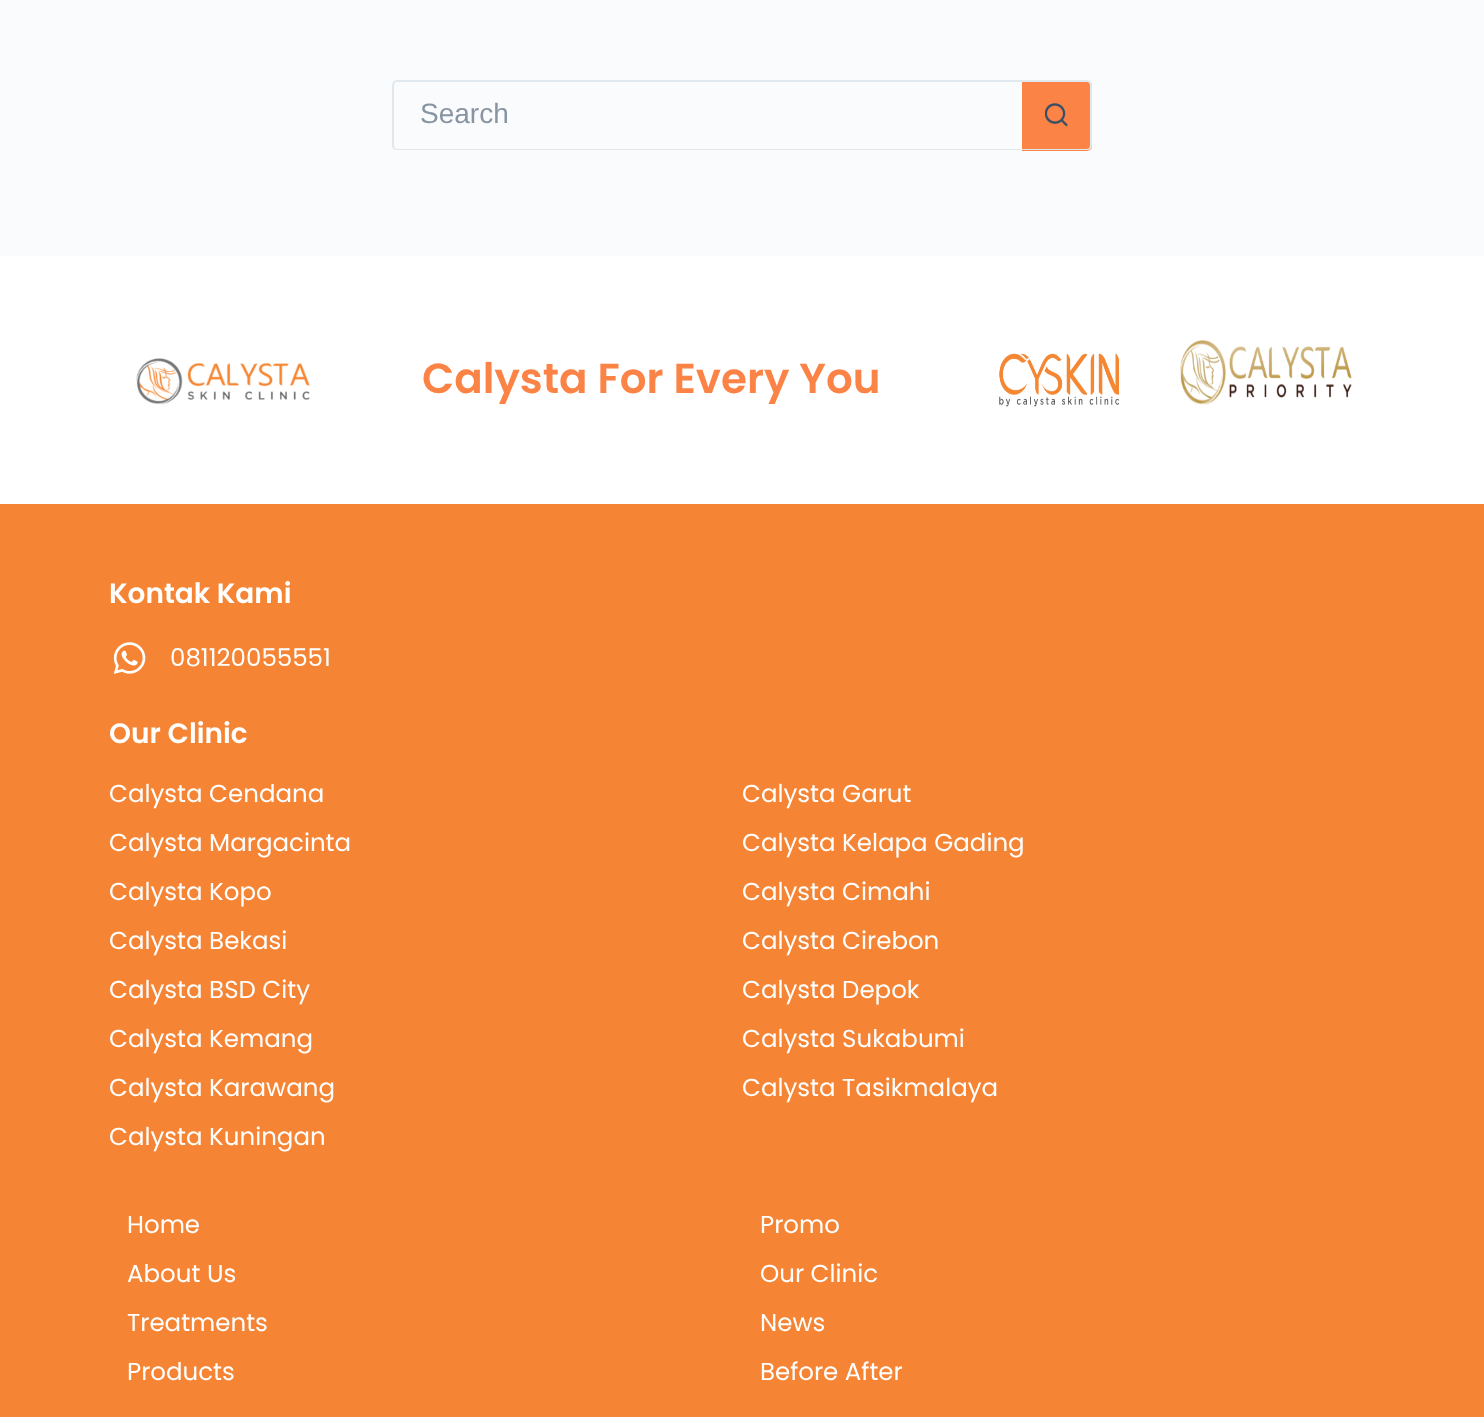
<!DOCTYPE html>
<meta charset="utf-8">
<style>body { margin: 0 } canvas { display: block }</style>
<canvas id="canvas" width="1484" height="1417"></canvas>
<img id="img1" src="images/1.png" hidden>
<img id="img2" src="images/2.png" hidden>
<img id="img3" src="images/3.png" hidden>
<img id="img4" src="images/4.png" hidden>
<img id="img5" src="images/5.png" hidden>
<script>
window.onload = function () {
    const canvas = document.getElementById('canvas');
    const context = canvas.getContext('2d');
    context.miterLimit = 4;
    context.fontKerning = 'normal';

    context.fillStyle = 'rgb(250, 251, 252)';
    context.fillRect(0, 0, 1484, 1417);
    context.fillStyle = 'rgb(225, 232, 237)';
    context.beginPath();
    context.moveTo(397, 80);
    context.lineTo(1022, 80);
    context.lineTo(1022, 150);
    context.lineTo(397, 150);
    context.bezierCurveTo(394, 150, 392, 148, 392, 145);
    context.lineTo(392, 86);
    context.bezierCurveTo(392, 83, 394, 80, 397, 80);
    context.closePath();
    context.moveTo(397, 82);
    context.lineTo(1022, 82);
    context.lineTo(1022, 149);
    context.lineTo(397, 149);
    context.bezierCurveTo(395, 149, 394, 147, 394, 145);
    context.lineTo(394, 86);
    context.bezierCurveTo(394, 84, 395, 82, 397, 82);
    context.closePath();
    context.fill('evenodd');
    context.fillStyle = 'rgb(252, 131, 70)';
    context.beginPath();
    context.roundRect(1022, 81, 70, 70, [0, 5, 5, 0]);
    context.fill();
    context.fillStyle = 'rgb(225, 232, 237)';
    context.beginPath();
    context.moveTo(1022, 80);
    context.lineTo(1087, 80);
    context.bezierCurveTo(1090, 80, 1092, 83, 1092, 86);
    context.lineTo(1092, 145);
    context.bezierCurveTo(1092, 148, 1090, 150, 1087, 150);
    context.lineTo(1022, 150);
    context.closePath();
    context.moveTo(1022, 82);
    context.lineTo(1087, 82);
    context.bezierCurveTo(1089, 82, 1090, 84, 1090, 86);
    context.lineTo(1090, 145);
    context.bezierCurveTo(1090, 147, 1089, 149, 1087, 149);
    context.lineTo(1022, 149);
    context.closePath();
    context.fill('evenodd');
    context.drawImage(document.getElementById('img1'), 1045, 103, 23, 23);
    context.fillStyle = 'rgb(255, 255, 255)';
    context.fillRect(0, 256, 1484, 248);
    context.drawImage(document.getElementById('img2'), 136, 358, 174, 47);
    context.drawImage(document.getElementById('img3'), 999, 353, 121, 54);
    context.drawImage(document.getElementById('img4'), 1180, 340, 172, 65);
    context.fillStyle = 'rgb(245, 133, 52)';
    context.fillRect(0, 504, 1484, 913);
    context.drawImage(document.getElementById('img5'), 113, 642, 33, 32);
    context.font = '28px Liberation Sans';
    context.fillStyle = 'rgb(135, 148, 162)';
    context.fillText('Search', 420, 123);
    context.font = '600 42px Poppins';
    context.fillStyle = 'rgb(252, 131, 70)';
    context.fillText('Calysta For Every You', 422, 393);
    context.font = '600 28px Poppins';
    context.fillStyle = 'rgb(255, 255, 255)';
    context.fillText('Kontak Kami', 109, 603);
    context.font = '24.5px Poppins';
    context.fillText('081120055551', 170, 666);
    context.font = '600 28px Poppins';
    context.fillText('Our Clinic', 109, 743);
    context.font = '24.5px Poppins';
    context.fillText('Calysta Cendana', 109, 802);
    context.fillText('Calysta Margacinta', 109, 851);
    context.fillText('Calysta Kopo', 109, 900);
    context.fillText('Calysta Bekasi', 109, 949);
    context.fillText('Calysta BSD City', 109, 998);
    context.fillText('Calysta Kemang', 109, 1047);
    context.fillText('Calysta Karawang', 109, 1096);
    context.fillText('Calysta Kuningan', 109, 1145);
    context.fillText('Calysta Garut', 742, 802);
    context.fillText('Calysta Kelapa Gading', 742, 851);
    context.fillText('Calysta Cimahi', 742, 900);
    context.fillText('Calysta Cirebon', 742, 949);
    context.fillText('Calysta Depok', 742, 998);
    context.fillText('Calysta Sukabumi', 742, 1047);
    context.fillText('Calysta Tasikmalaya', 742, 1096);
    context.fillText('Home', 127, 1233);
    context.fillText('About Us', 127, 1282);
    context.fillText('Treatments', 127, 1331);
    context.fillText('Products', 127, 1380);
    context.fillText('Promo', 760, 1233);
    context.fillText('Our Clinic', 760, 1282);
    context.fillText('News', 760, 1331);
    context.fillText('Before After', 760, 1380);
};
</script>
